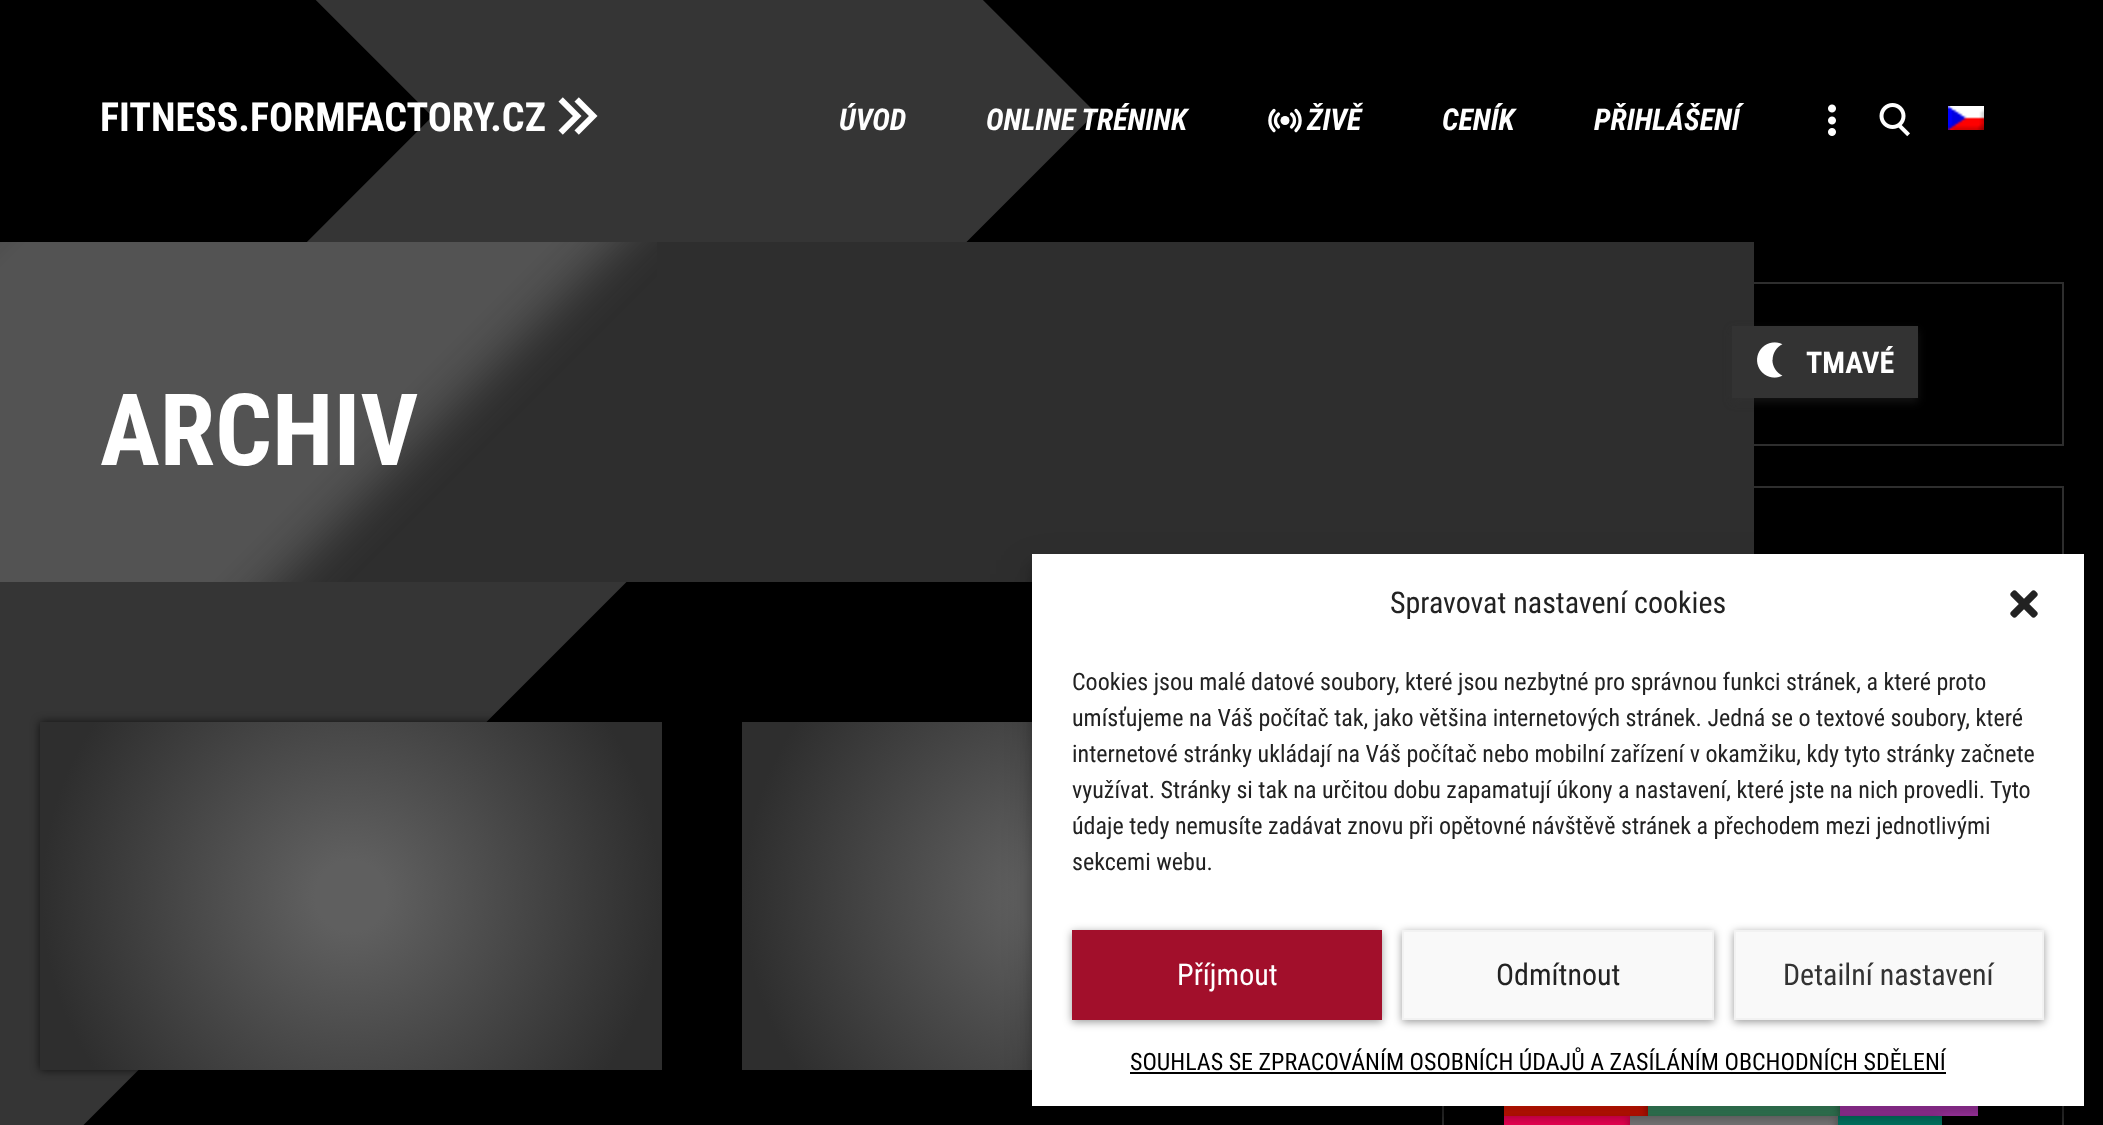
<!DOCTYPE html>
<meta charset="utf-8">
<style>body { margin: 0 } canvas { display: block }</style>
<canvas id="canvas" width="2103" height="1125"></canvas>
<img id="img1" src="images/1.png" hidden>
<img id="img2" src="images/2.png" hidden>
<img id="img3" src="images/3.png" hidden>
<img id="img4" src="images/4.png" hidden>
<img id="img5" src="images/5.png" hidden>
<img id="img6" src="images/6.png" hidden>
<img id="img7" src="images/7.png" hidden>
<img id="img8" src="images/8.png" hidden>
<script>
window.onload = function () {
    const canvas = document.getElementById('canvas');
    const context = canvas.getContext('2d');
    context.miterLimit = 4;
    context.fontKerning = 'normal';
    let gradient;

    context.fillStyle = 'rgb(0, 0, 0)';
    context.fillRect(0, 0, 2103, 1125);
    context.drawImage(document.getElementById('img1'), 0, 0, 1096, 1125);
    context.drawImage(document.getElementById('img2'), 558, 97, 40, 38);
    context.fillStyle = 'rgb(255, 255, 255)';
    context.beginPath();
    context.arc(1285, 120.5, 4.5, 0, 2 * Math.PI);
    context.fill();
    context.beginPath();
    context.moveTo(1274, 130.5);
    context.bezierCurveTo(1268.5, 125, 1268.5, 116, 1274, 110.5);
    context.moveTo(1296, 110.5);
    context.bezierCurveTo(1301.5, 116, 1301.5, 125, 1296, 130.5);
    context.moveTo(1278.5, 127);
    context.bezierCurveTo(1274.5, 123.5, 1274.5, 117.5, 1278.5, 114);
    context.moveTo(1291.5, 114);
    context.bezierCurveTo(1295.5, 117.5, 1295.5, 123.5, 1291.5, 127);
    context.strokeStyle = 'rgb(255, 255, 255)';
    context.lineWidth = 3.3;
    context.lineCap = 'round';
    context.lineJoin = 'round';
    context.stroke();
    context.drawImage(document.getElementById('img3'), 1828, 104, 8, 32);
    context.drawImage(document.getElementById('img4'), 1879, 103, 31, 34);
    context.drawImage(document.getElementById('img5'), 1948, 106, 36, 24);
    context.strokeStyle = 'rgb(46, 46, 46)';
    context.lineWidth = 2;
    context.lineJoin = 'miter';
    context.strokeRect(1443, 283, 620, 162);
    context.strokeRect(1443, 487, 620, 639);
    context.fillStyle = 'rgb(46, 46, 46)';
    context.fillRect(0, 242, 1754, 340);
    context.fillStyle = 'rgba(51, 51, 51, 0.4)';
    context.filter = 'blur(4px)';
    context.beginPath();
    context.rect(1732, 330, 186, 72);
    context.fill();
    context.filter = 'none';
    context.fillStyle = 'rgb(51, 51, 51)';
    context.fillRect(1732, 326, 186, 72);
    context.drawImage(document.getElementById('img6'), 1757, 342, 26, 36);
    context.fillStyle = 'rgb(255, 25, 0)';
    context.fillRect(1504, 1106, 144, 10);
    context.fillStyle = 'rgba(0, 0, 0, 0.4)';
    context.filter = 'blur(4px)';
    context.beginPath();
    context.rect(1504, 1118, 126, 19);
    context.fill();
    context.filter = 'none';
    context.fillStyle = 'rgb(255, 0, 89)';
    context.fillRect(1504, 1116, 126, 9);
    context.fillStyle = 'rgba(0, 0, 0, 0.4)';
    context.filter = 'blur(4px)';
    context.beginPath();
    context.rect(1648, 1066, 192, 52);
    context.fill();
    context.filter = 'none';
    context.fillStyle = 'rgb(67, 160, 113)';
    context.fillRect(1648, 1106, 192, 10);
    context.fillStyle = 'rgba(0, 0, 0, 0.4)';
    context.filter = 'blur(4px)';
    context.beginPath();
    context.rect(1840, 1066, 138, 52);
    context.fill();
    context.filter = 'none';
    context.fillStyle = 'rgb(195, 63, 198)';
    context.fillRect(1840, 1106, 138, 10);
    context.fillStyle = 'rgba(0, 0, 0, 0.4)';
    context.filter = 'blur(4px)';
    context.beginPath();
    context.rect(1630, 1118, 208, 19);
    context.fill();
    context.filter = 'none';
    context.fillStyle = 'rgb(128, 128, 128)';
    context.fillRect(1630, 1116, 208, 9);
    context.fillStyle = 'rgba(0, 0, 0, 0.4)';
    context.filter = 'blur(4px)';
    context.beginPath();
    context.rect(1838, 1118, 104, 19);
    context.fill();
    context.filter = 'none';
    context.fillStyle = 'rgb(0, 125, 105)';
    context.fillRect(1838, 1116, 104, 9);
    context.drawImage(document.getElementById('img7'), 0, 242, 657, 340);
    context.fillStyle = 'rgba(0, 0, 0, 0.7)';
    context.filter = 'blur(5px)';
    context.beginPath();
    context.rect(40, 722, 622, 348);
    context.fill();
    context.filter = 'none';
    gradient = context.createRadialGradient(351, 896, 0, 351, 896, 356);
    gradient.addColorStop(0.1, 'rgb(95, 95, 95)');
    gradient.addColorStop(0.87, 'rgb(46, 46, 46)');
    context.fillStyle = gradient;
    context.fillRect(40, 722, 622, 348);
    gradient = context.createRadialGradient(1052, 896, 0, 1052, 896, 355);
    gradient.addColorStop(0.1, 'rgb(95, 95, 95)');
    gradient.addColorStop(0.87, 'rgb(46, 46, 46)');
    context.fillStyle = gradient;
    context.fillRect(742, 722, 290, 348);
    context.fillStyle = 'rgba(0, 0, 0, 0.23)';
    context.filter = 'blur(6px)';
    context.beginPath();
    context.rect(1032, 566, 1052, 552);
    context.fill();
    context.filter = 'none';
    context.fillStyle = 'rgba(0, 0, 0, 0.19)';
    context.filter = 'blur(20px)';
    context.beginPath();
    context.rect(1032, 574, 1052, 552);
    context.fill();
    context.filter = 'none';
    context.fillStyle = 'rgb(255, 255, 255)';
    context.fillRect(1032, 554, 1052, 552);
    context.drawImage(document.getElementById('img8'), 2010, 590, 28, 28);
    context.fillStyle = 'rgba(0, 0, 0, 0.4)';
    context.filter = 'blur(4px)';
    context.beginPath();
    context.rect(1072, 932, 310, 90);
    context.fill();
    context.filter = 'none';
    context.fillStyle = 'rgb(162, 15, 43)';
    context.fillRect(1072, 930, 310, 90);
    context.fillStyle = 'rgba(0, 0, 0, 0.4)';
    context.filter = 'blur(4px)';
    context.beginPath();
    context.rect(1402, 932, 312, 90);
    context.fill();
    context.filter = 'none';
    context.fillStyle = 'rgb(249, 249, 249)';
    context.beginPath();
    context.rect(1403, 931, 310, 88);
    context.fill();
    context.strokeStyle = 'rgb(242, 242, 242)';
    context.stroke();
    context.fillStyle = 'rgba(0, 0, 0, 0.4)';
    context.filter = 'blur(4px)';
    context.beginPath();
    context.rect(1734, 932, 310, 90);
    context.fill();
    context.filter = 'none';
    context.fillStyle = 'rgb(249, 249, 249)';
    context.beginPath();
    context.rect(1735, 931, 308, 88);
    context.fill();
    context.stroke();
    context.fillStyle = 'rgb(0, 0, 0)';
    context.fillRect(1130, 1072, 816, 2);
    context.font = 'bold 40px Roboto Condensed';
    context.fillStyle = 'rgb(255, 255, 255)';
    context.fillText('FITNESS.FORMFACTORY.CZ', 100, 131);
    context.font = 'italic bold 30px Roboto Condensed';
    context.fillText('ÚVOD', 839, 130);
    context.fillText('ONLINE TRÉNINK', 986, 130);
    context.fillText('ŽIVĚ', 1307, 130);
    context.fillText('CENÍK', 1442, 130);
    context.fillText('PŘIHLÁŠENÍ', 1594, 130);
    context.font = 'bold 30px Roboto Condensed';
    context.fillText('TMAVÉ', 1806, 373);
    context.font = 'bold 100px Roboto Condensed';
    context.fillText('ARCHIV', 100, 465);
    context.font = '30px Roboto Condensed';
    context.fillStyle = 'rgb(34, 34, 34)';
    context.fillText('Spravovat nastavení cookies', 1390, 613);
    context.font = '24px Roboto Condensed';
    context.fillText('Cookies jsou malé datové soubory, které jsou nezbytné pro správnou funkci stránek, a které proto', 1072, 690);
    context.fillText('umísťujeme na Váš počítač tak, jako většina internetových stránek. Jedná se o textové soubory, které', 1072, 726);
    context.fillText('internetové stránky ukládají na Váš počítač nebo mobilní zařízení v okamžiku, kdy tyto stránky začnete', 1072, 762);
    context.fillText('využívat. Stránky si tak na určitou dobu zapamatují úkony a nastavení, které jste na nich provedli. Tyto', 1072, 798);
    context.fillText('údaje tedy nemusíte zadávat znovu při opětovné návštěvě stránek a přechodem mezi jednotlivými', 1072, 834);
    context.fillText('sekcemi webu.', 1072, 870);
    context.font = '30px Roboto Condensed';
    context.fillStyle = 'rgb(255, 255, 255)';
    context.fillText('Příjmout', 1177, 985);
    context.fillStyle = 'rgb(34, 34, 34)';
    context.fillText('Odmítnout', 1496, 985);
    context.fillStyle = 'rgb(51, 51, 51)';
    context.fillText('Detailní nastavení', 1783, 985);
    context.font = '24px Roboto Condensed';
    context.fillStyle = 'rgb(0, 0, 0)';
    context.fillText('SOUHLAS SE ZPRACOVÁNÍM OSOBNÍCH ÚDAJŮ A ZASÍLÁNÍM OBCHODNÍCH SDĚLENÍ', 1130, 1070);
};
</script>
